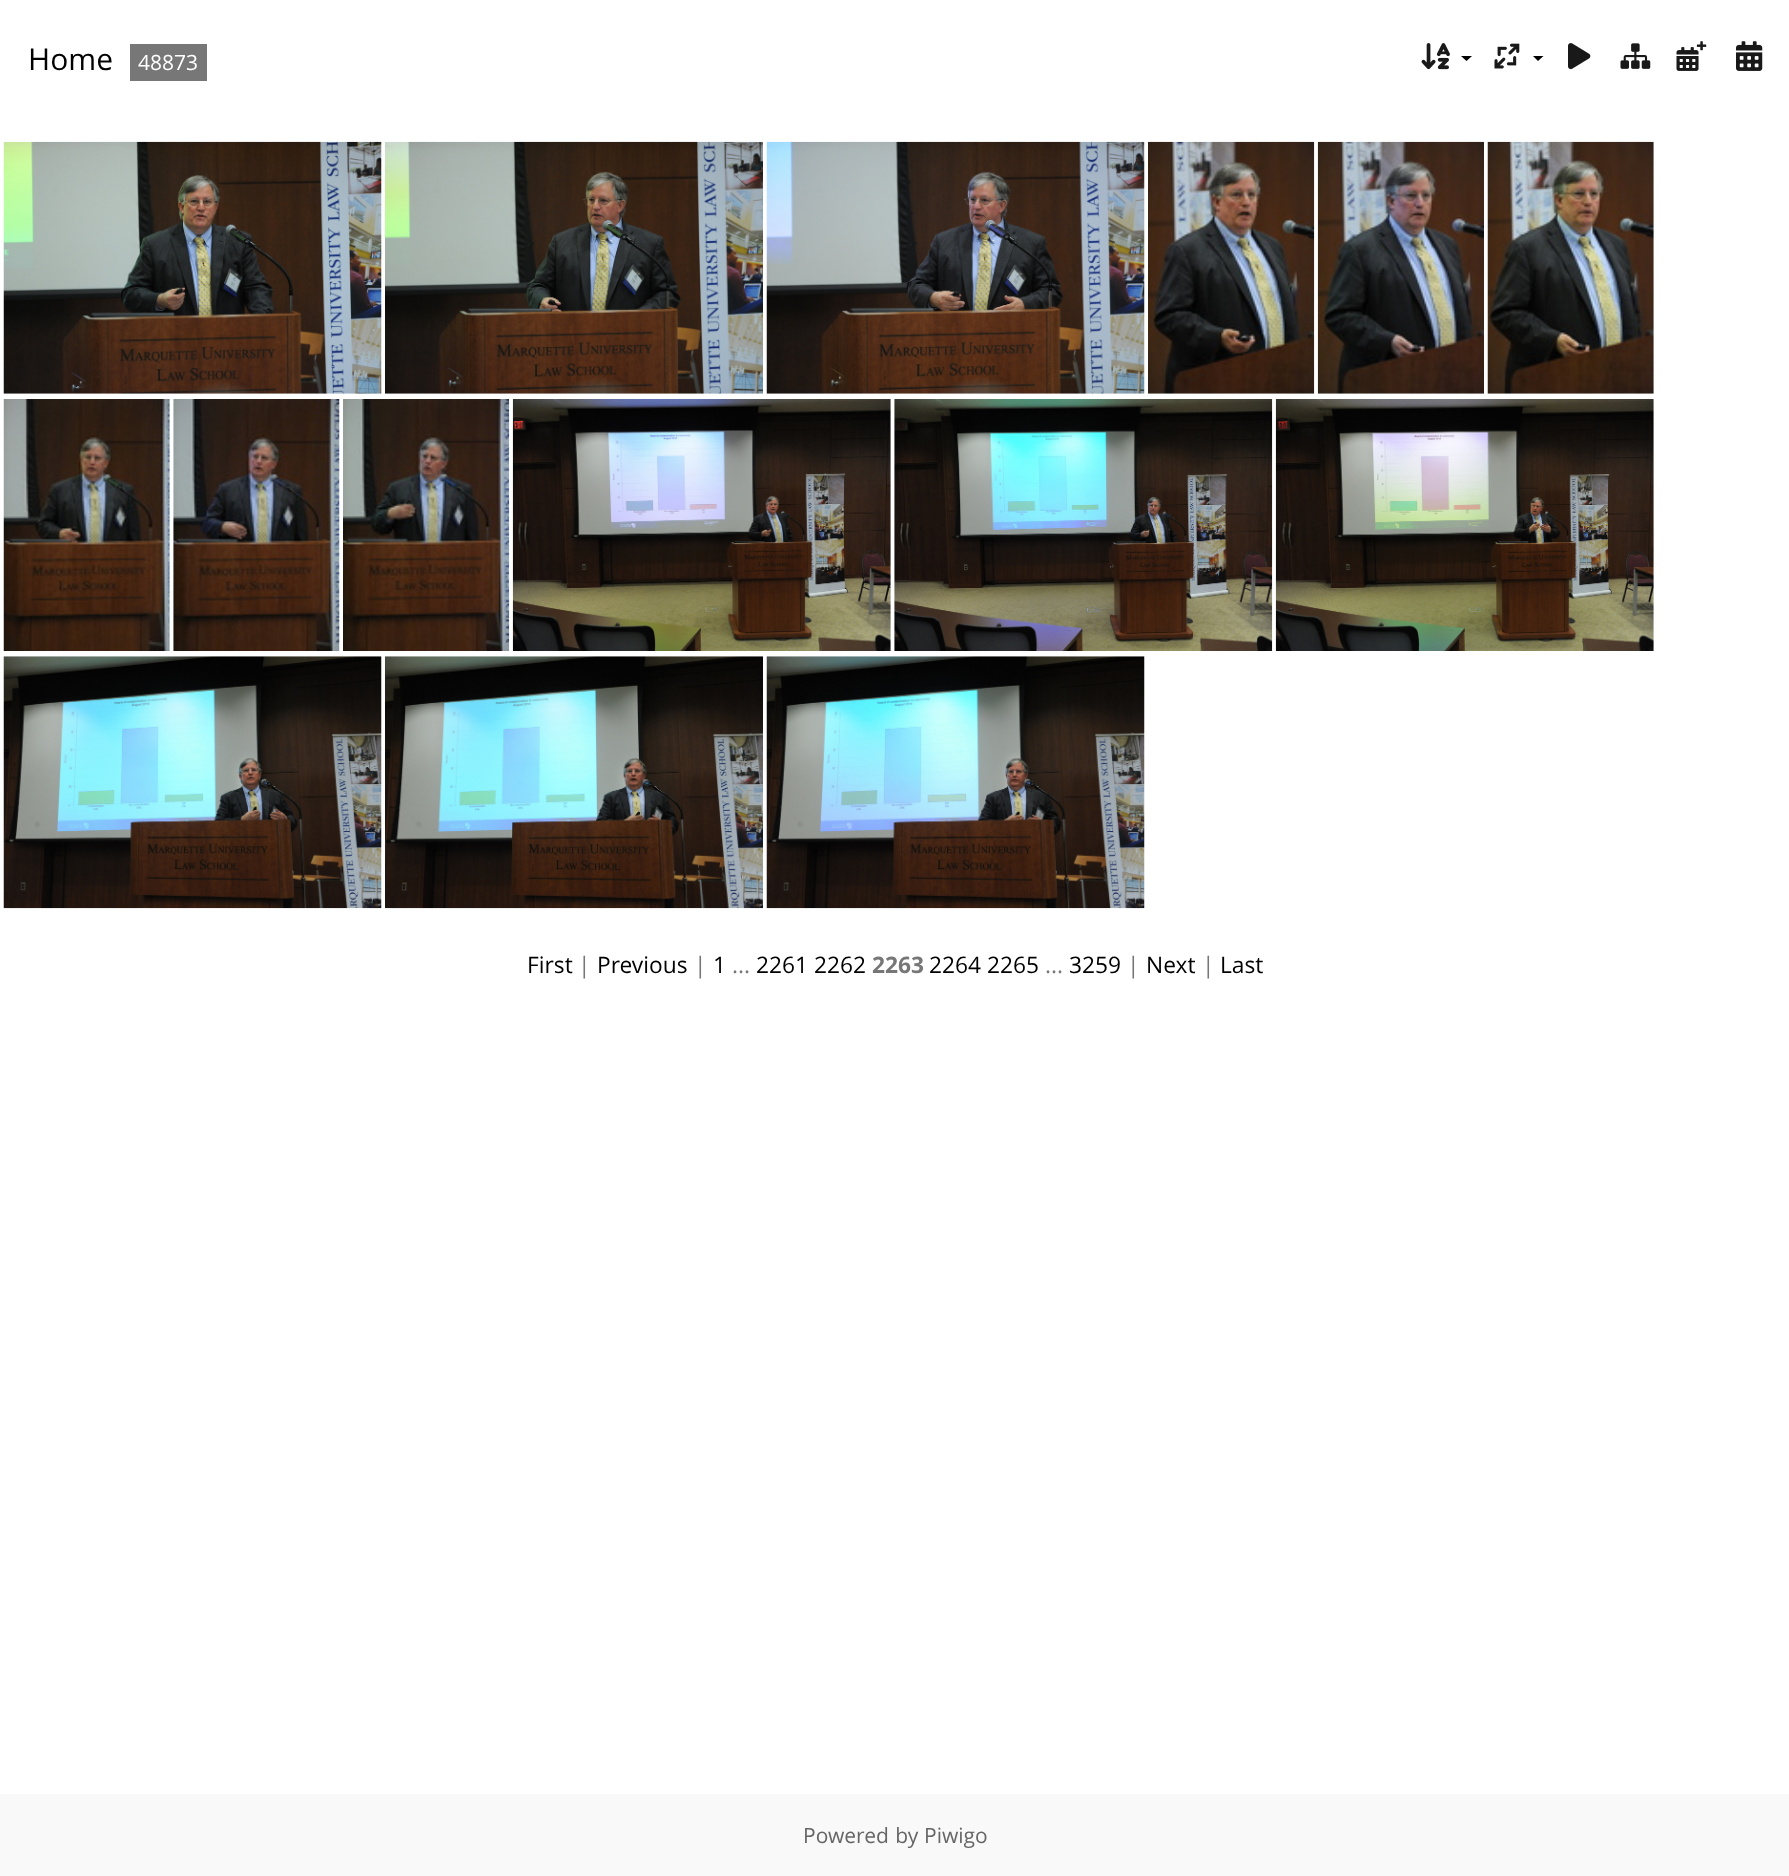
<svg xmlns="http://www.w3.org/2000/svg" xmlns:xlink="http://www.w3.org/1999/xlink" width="1789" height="1876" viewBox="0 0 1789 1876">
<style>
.cls-1{font:30px Open Sans;fill:#000000}
.cls-2{font:21px Open Sans;fill:#ffffff}
.cls-3{font:22.75px Open Sans;fill:#000000}
.cls-4{font:22.75px Open Sans;fill:#777777}
.cls-5{font:bold 22.75px Open Sans;fill:#777777}
.cls-6{font:21px Open Sans;fill:#666666}
</style>
<rect width="100%" height="100%" fill="#ffffff"/>
<rect fill="#777777" x="130" y="44" width="77" height="37"/>
<image xlink:href="image0.png" x="1421" y="43" width="29" height="27"/>
<path fill="#000000" d="M1461 56H1472L1466.5 61Z"/>
<image xlink:href="image1.png" x="1494" y="43" width="26" height="26"/>
<path fill="#000000" d="M1533 56H1543.5L1538 61Z"/>
<image xlink:href="image2.png" x="1568" y="43" width="23" height="27"/>
<image xlink:href="image3.png" x="1620" y="43" width="31" height="26"/>
<image xlink:href="image4.png" x="1676" y="41" width="31" height="30"/>
<image xlink:href="image5.png" x="1736" y="41" width="27" height="30"/>
<image xlink:href="image6.png" x="3" y="141" width="379" height="253"/>
<image xlink:href="image7.png" x="385" y="141" width="378" height="253"/>
<image xlink:href="image8.png" x="766" y="141" width="379" height="253"/>
<image xlink:href="image9.png" x="1148" y="141" width="167" height="253"/>
<image xlink:href="image10.png" x="1317" y="141" width="167" height="253"/>
<image xlink:href="image11.png" x="1487" y="141" width="167" height="253"/>
<image xlink:href="image12.png" x="3" y="399" width="167" height="252"/>
<image xlink:href="image13.png" x="173" y="399" width="167" height="252"/>
<image xlink:href="image14.png" x="343" y="399" width="167" height="252"/>
<image xlink:href="image15.png" x="512" y="399" width="379" height="252"/>
<image xlink:href="image16.png" x="894" y="399" width="379" height="252"/>
<image xlink:href="image17.png" x="1275" y="399" width="379" height="252"/>
<image xlink:href="image18.png" x="3" y="656" width="379" height="253"/>
<image xlink:href="image19.png" x="385" y="656" width="378" height="253"/>
<image xlink:href="image20.png" x="766" y="656" width="379" height="253"/>
<rect fill="#f9f9f9" x="0" y="1794" width="1789" height="82"/>
<text class="cls-1" x="28" y="70">Home</text>
<text class="cls-2" x="138" y="70">48873</text>
<text class="cls-3" x="527" y="973">First</text>
<text class="cls-4" x="578" y="973">|</text>
<text class="cls-3" x="597" y="973">Previous</text>
<text class="cls-4" x="694" y="973">|</text>
<text class="cls-3" x="713" y="973">1</text>
<text class="cls-4" x="732" y="973">...</text>
<text class="cls-3" x="756" y="973">2261 2262</text>
<text class="cls-5" x="872" y="973">2263</text>
<text class="cls-3" x="929" y="973">2264 2265</text>
<text class="cls-4" x="1045" y="973">...</text>
<text class="cls-3" x="1069" y="973">3259</text>
<text class="cls-4" x="1127" y="973">|</text>
<text class="cls-3" x="1146" y="973">Next</text>
<text class="cls-4" x="1202" y="973">|</text>
<text class="cls-3" x="1220" y="973">Last</text>
<text class="cls-6" x="803" y="1843" word-spacing="1">Powered by</text>
<text class="cls-6" x="924" y="1843">Piwigo</text>
</svg>
